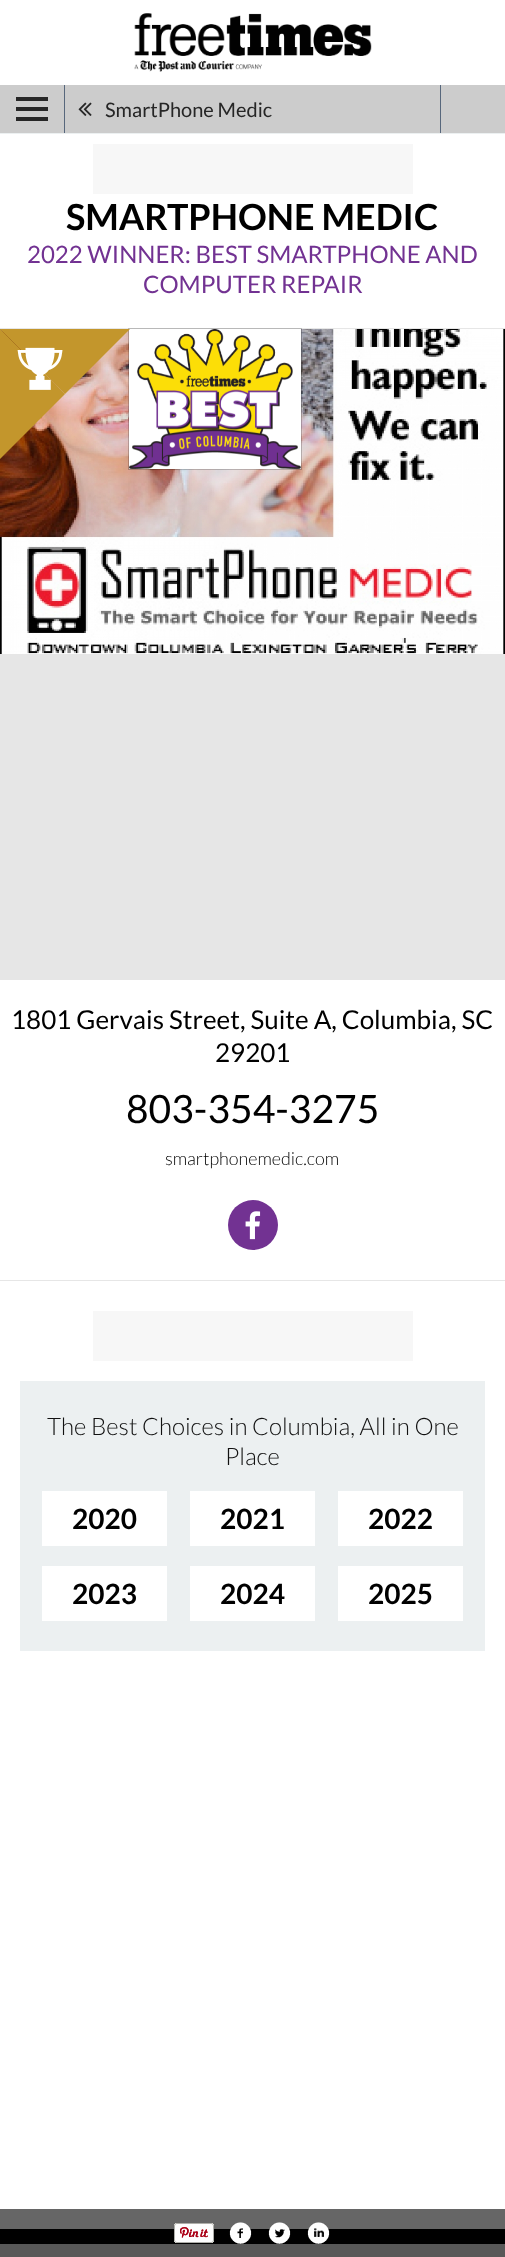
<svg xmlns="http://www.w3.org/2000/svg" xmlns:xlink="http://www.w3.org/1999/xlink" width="505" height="2257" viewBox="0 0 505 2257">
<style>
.cls-1{font:20px Lato;fill:#262626}
.cls-2{font:bold 36px Lato;fill:#000000}
.cls-3{font:24px Lato;fill:#723292}
.cls-4{font:26px Lato;fill:#000000}
.cls-5{font:39px Lato;fill:#000000}
.cls-6{font:300 18px Lato;fill:#000000}
.cls-7{font:300 24px Lato;fill:#111111}
.cls-8{font:bold 28px Lato;fill:#000000}
</style>
<rect width="100%" height="100%" fill="#585858"/>
<rect fill="#ffffff" x="0" y="0" width="505" height="85"/>
<image xlink:href="image0.png" x="134" y="13" width="238" height="59"/>
<rect fill="#ffffff" x="0" y="134" width="505" height="2075"/>
<rect fill="#666666" x="0" y="2209" width="505" height="20"/>
<rect fill="#ecf0f1" x="0" y="133" width="505" height="1"/>
<rect fill="#cccccc" x="0" y="85" width="505" height="48"/>
<rect fill="#262626" x="16" y="97" width="32" height="4"/>
<rect fill="#262626" x="16" y="107" width="32" height="4"/>
<rect fill="#262626" x="16" y="117" width="32" height="4"/>
<rect fill="#57677c" x="440" y="85" width="1" height="48"/>
<rect fill="#57677c" x="64" y="85" width="1" height="48"/>
<image xlink:href="image1.png" x="78" y="102" width="14" height="14"/>
<rect fill="#f7f7f7" x="93" y="144" width="320" height="50"/>
<rect fill="none" stroke="#e6e6e6" x="-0.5" y="328.5" width="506" height="651"/>
<image xlink:href="image2.png" x="0" y="329" width="505" height="325"/>
<rect fill="none" stroke="#000000" stroke-opacity="0.2" x="128.5" y="328.5" width="173" height="141"/>
<rect fill="#ffffff" x="129" y="329" width="172" height="140"/>
<image xlink:href="image4.png" x="129" y="329" width="172" height="140"/>
<path fill="#c3962c" d="M0 329H130L65 394Z"/>
<path fill="#c3962c" d="M0 459V329L65 394Z"/>
<image xlink:href="image3.png" x="17" y="347" width="46" height="43"/>
<rect fill="#e6e6e6" x="0" y="654" width="505" height="325"/>
<rect fill="#e6e6e6" x="0" y="1280" width="505" height="1"/>
<circle fill="#723292" cx="253" cy="1225" r="25"/>
<image xlink:href="image5.png" x="245" y="1211" width="16" height="29"/>
<rect fill="#f7f7f7" x="93" y="1311" width="320" height="50"/>
<rect fill="#ecf0f1" x="20" y="1381" width="465" height="270"/>
<rect fill="#ffffff" x="42" y="1491" width="125" height="55"/>
<rect fill="#ffffff" x="190" y="1491" width="125" height="55"/>
<rect fill="#ffffff" x="338" y="1491" width="125" height="55"/>
<rect fill="#ffffff" x="42" y="1566" width="125" height="55"/>
<rect fill="#ffffff" x="190" y="1566" width="125" height="55"/>
<rect fill="#ffffff" x="338" y="1566" width="125" height="55"/>
<rect fill="#000000" x="0" y="2229" width="505" height="15"/>
<image xlink:href="image6.png" x="174" y="2223" width="40" height="20"/>
<image xlink:href="image7.png" x="229" y="2222" width="23" height="22"/>
<image xlink:href="image8.png" x="268" y="2222" width="23" height="22"/>
<image xlink:href="image9.png" x="307" y="2222" width="23" height="22"/>
<text class="cls-1" x="105" y="117">SmartPhone Medic</text>
<text class="cls-2" x="66" y="230">SMARTPHONE MEDIC</text>
<text class="cls-3" x="27" y="263">2022 WINNER: BEST SMARTPHONE AND</text>
<text class="cls-3" x="143" y="293">COMPUTER REPAIR</text>
<text class="cls-4" x="11" y="1029">1801 Gervais Street, Suite A, Columbia, SC</text>
<text class="cls-4" x="215" y="1062">29201</text>
<text class="cls-5" x="126" y="1123">803-354-3275</text>
<text class="cls-6" x="165" y="1165">smartphonemedic.com</text>
<text class="cls-7" x="47" y="1435">The Best Choices in Columbia, All in One</text>
<text class="cls-7" x="225" y="1465">Place</text>
<text class="cls-8" x="72" y="1529">2020</text>
<text class="cls-8" x="220" y="1529">2021</text>
<text class="cls-8" x="368" y="1529">2022</text>
<text class="cls-8" x="72" y="1604">2023</text>
<text class="cls-8" x="220" y="1604">2024</text>
<text class="cls-8" x="368" y="1604">2025</text>
</svg>
